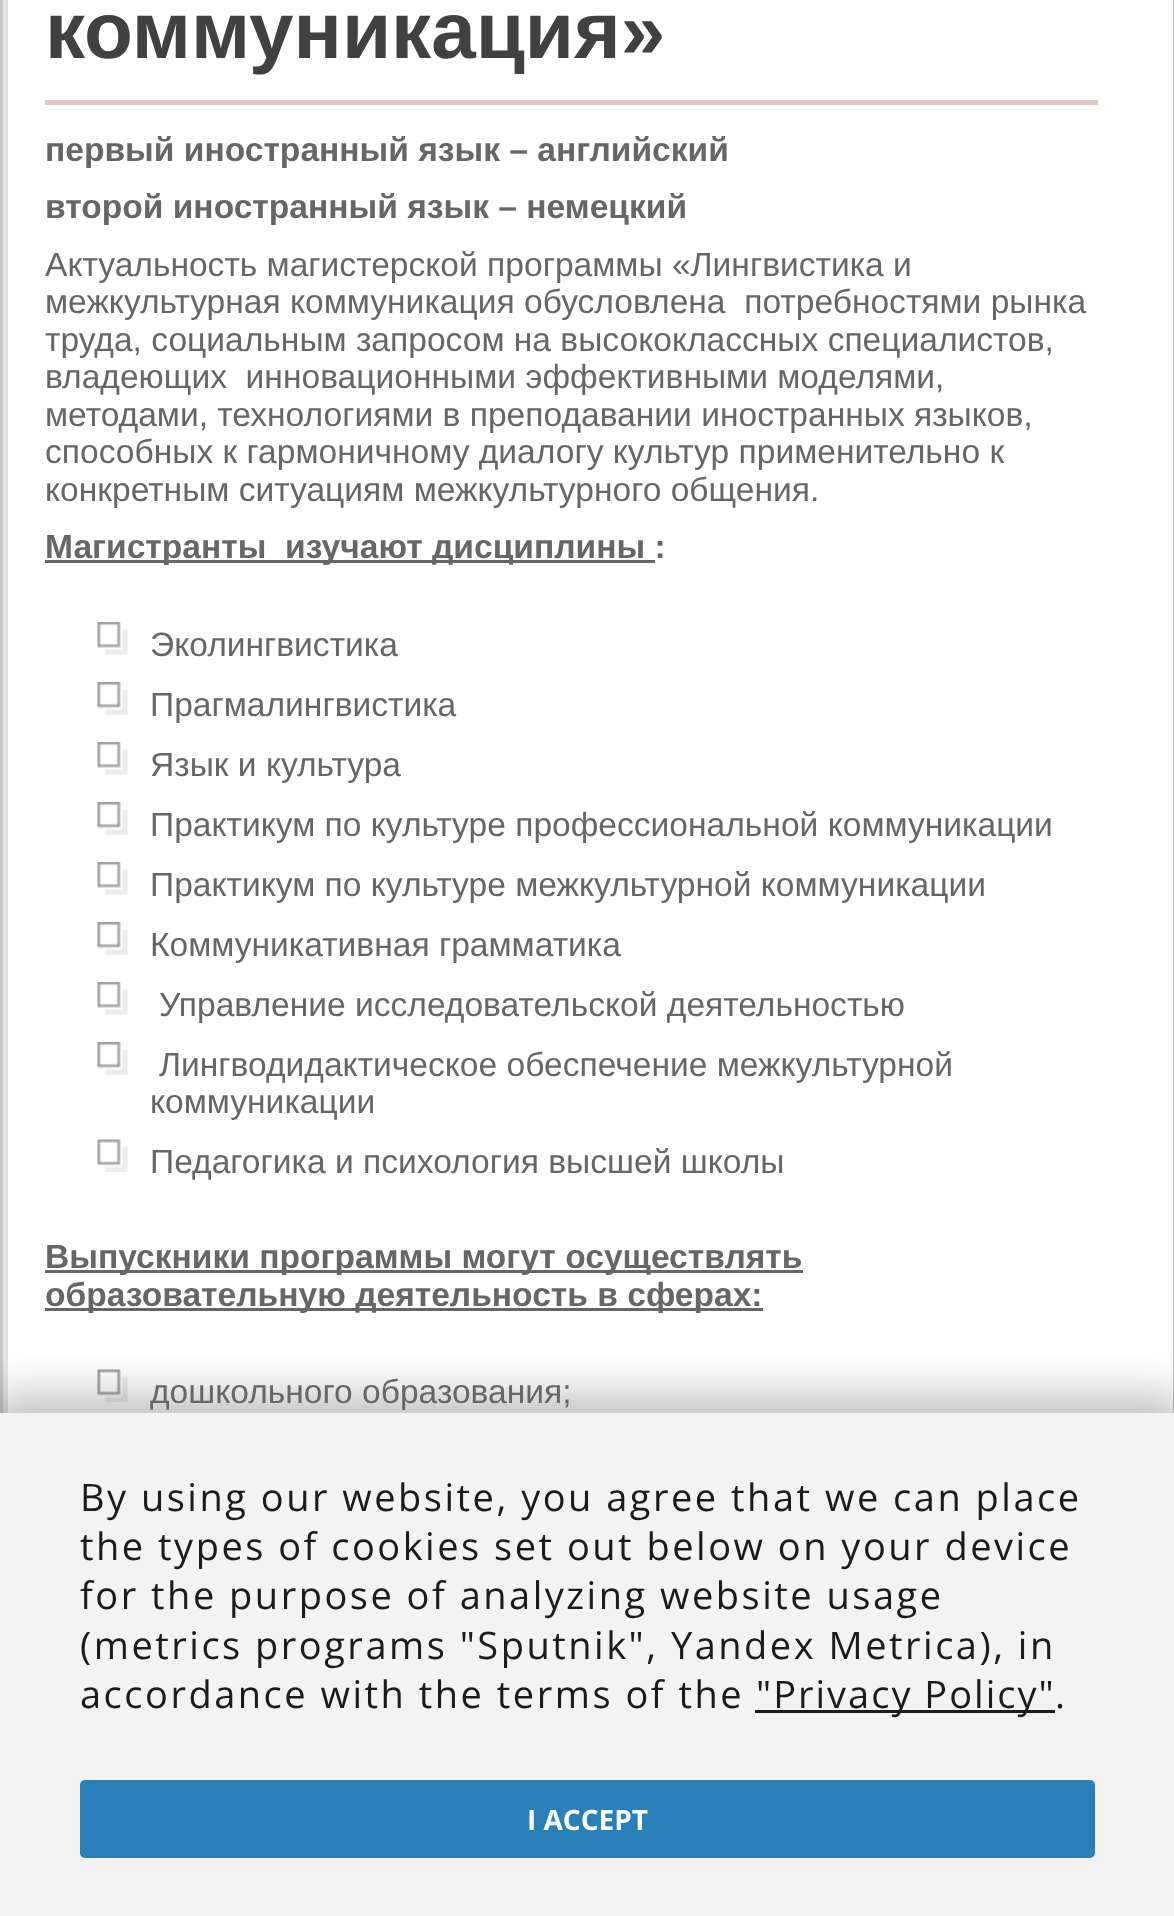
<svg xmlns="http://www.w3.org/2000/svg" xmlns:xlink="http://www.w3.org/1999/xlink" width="1174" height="1916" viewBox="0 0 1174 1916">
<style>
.cls-1{font:bold 80px Liberation Sans;fill:#414141}
.cls-2{font:bold 33.6px Liberation Sans;fill:#666666}
.cls-3{font:33.6px Liberation Sans;fill:#666666}
.cls-4{font:38px Open Sans;letter-spacing:2.5px;fill:#1b1b1b}
.cls-5{font:38px Open Sans;letter-spacing:2px;fill:#1b1b1b}
.cls-6{font:bold 28px Open Sans;fill:#ffffff}
</style>
<rect width="100%" height="100%" fill="#ffffff"/>
<rect fill="#c7c7c7" x="1173" y="0" width="1" height="1413"/>
<rect fill="#c7c7c7" x="0" y="0" width="3" height="1413"/>
<rect fill="#e3e3e3" x="3" y="0" width="5" height="1413"/>
<rect fill="#dec7c4" x="45" y="100" width="1053" height="5"/>
<rect fill="#666666" x="45" y="560" width="610" height="3"/>
<image xlink:href="image0.png" x="97" y="622" width="31" height="33"/>
<image xlink:href="image0.png" x="97" y="682" width="31" height="33"/>
<image xlink:href="image0.png" x="97" y="742" width="31" height="33"/>
<image xlink:href="image0.png" x="97" y="802" width="31" height="33"/>
<image xlink:href="image0.png" x="97" y="862" width="31" height="33"/>
<image xlink:href="image0.png" x="97" y="922" width="31" height="33"/>
<image xlink:href="image0.png" x="97" y="982" width="31" height="33"/>
<image xlink:href="image0.png" x="97" y="1042" width="31" height="33"/>
<image xlink:href="image1.png" x="97" y="1139" width="31" height="33"/>
<rect fill="#666666" x="45" y="1270" width="758" height="3"/>
<rect fill="#666666" x="45" y="1308" width="718" height="3"/>
<image xlink:href="image1.png" x="97" y="1369" width="31" height="33"/>
<rect fill="#000000" fill-opacity="0.25" filter="blur(22.5px)" x="-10" y="1395" width="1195" height="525"/>
<rect fill="#f3f3f3" x="0" y="1413" width="1174" height="503"/>
<rect fill="#1b1b1b" x="755" y="1710" width="300" height="3"/>
<rect fill="#2980b9" x="80" y="1780" width="1015" height="78" rx="5"/>
<text class="cls-1" x="45" y="58">коммуникация»</text>
<text class="cls-2"><tspan x="45" y="161">первый иностранный язык – английский</tspan><tspan x="45" y="218">второй иностранный язык – немецкий</tspan></text>
<text class="cls-3" xml:space="preserve"><tspan x="45" y="276">Актуальность магистерской программы «Лингвистика и</tspan><tspan x="45" y="313">межкультурная коммуникация обусловлена  потребностями рынка</tspan><tspan x="45" y="351">труда, социальным запросом на высококлассных специалистов,</tspan><tspan x="45" y="388">владеющих  инновационными эффективными моделями,</tspan><tspan x="45" y="426">методами, технологиями в преподавании иностранных языков,</tspan><tspan x="45" y="463">способных к гармоничному диалогу культур применительно к</tspan><tspan x="45" y="501">конкретным ситуациям межкультурного общения.</tspan></text>
<text class="cls-2" xml:space="preserve" x="45" y="558">Магистранты  изучают дисциплины :</text>
<text class="cls-3"><tspan x="150" y="656">Эколингвистика</tspan><tspan x="150" y="716">Прагмалингвистика</tspan><tspan x="150" y="776">Язык и культура</tspan><tspan x="150" y="836">Практикум по культуре профессиональной коммуникации</tspan><tspan x="150" y="896">Практикум по культуре межкультурной коммуникации</tspan><tspan x="150" y="956">Коммуникативная грамматика</tspan></text>
<text class="cls-3"><tspan x="159" y="1016">Управление исследовательской деятельностью</tspan><tspan x="159" y="1076">Лингводидактическое обеспечение межкультурной</tspan></text>
<text class="cls-3"><tspan x="150" y="1113">коммуникации</tspan><tspan x="150" y="1173">Педагогика и психология высшей школы</tspan></text>
<text class="cls-2"><tspan x="45" y="1268">Выпускники программы могут осуществлять</tspan><tspan x="45" y="1306">образовательную деятельность в сферах:</tspan></text>
<text class="cls-3" x="150" y="1403">дошкольного образования;</text>
<text class="cls-4"><tspan x="80" y="1511">By using our website, you agree that we can place</tspan><tspan x="80" y="1560">the types of cookies set out below on your device</tspan><tspan x="80" y="1609">for the purpose of analyzing website usage</tspan><tspan x="80" y="1659">(metrics programs "Sputnik", Yandex Metrica), in</tspan><tspan x="80" y="1708">accordance with the terms of the</tspan></text>
<text class="cls-5" x="756" y="1708">"Privacy Policy"</text>
<text class="cls-4" x="1055" y="1708">.</text>
<text class="cls-6" x="527" y="1830">I ACCEPT</text>
</svg>
